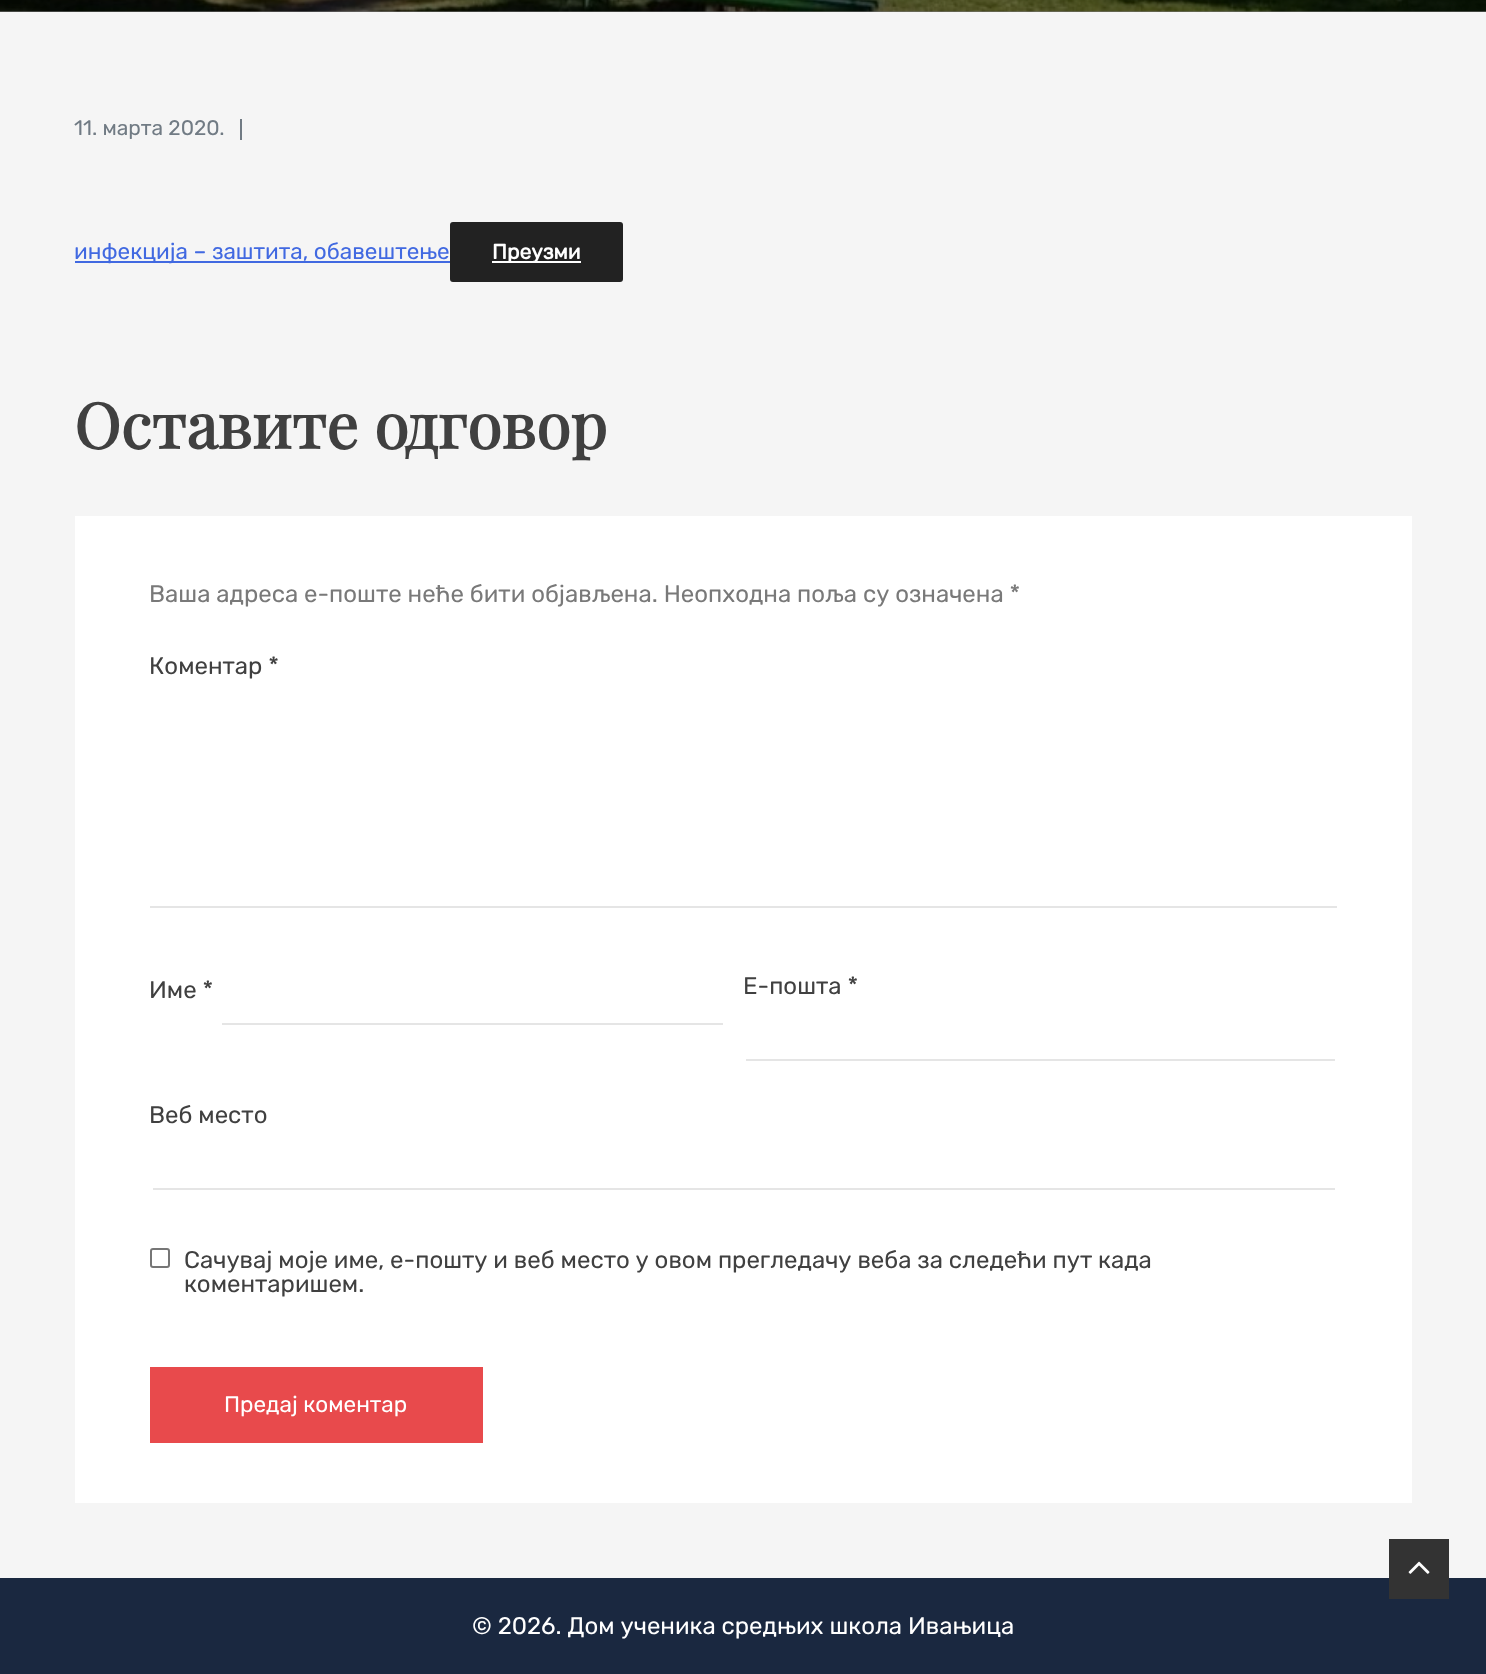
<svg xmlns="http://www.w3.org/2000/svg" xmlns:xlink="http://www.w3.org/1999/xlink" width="1486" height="1674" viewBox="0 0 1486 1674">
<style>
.cls-1{font:300 21px Rubik;fill:#717b84}
.cls-2{font:300 22.5px Rubik;fill:#4169e1}
.cls-3{font:bold 21px Rubik;fill:#ffffff}
.cls-4{font:bold 63px Playfair Display;fill:#404040}
.cls-5{font:300 24px Rubik;fill:#797979}
.cls-6{font:300 24px Rubik;fill:#404040}
.cls-7{font:300 22.5px Rubik;fill:#ffffff}
.cls-8{font:300 24px Rubik;fill:#ffffff}
</style>
<rect width="100%" height="100%" fill="#f5f5f5"/>
<rect fill="#7b7b7b" x="0" y="11" width="1486" height="1"/>
<image xlink:href="image0.png" x="0" y="0" width="1486" height="12"/>
<rect fill="#717b84" x="240" y="119" width="2" height="21"/>
<rect fill="#4169e1" x="75" y="261" width="375" height="2"/>
<rect fill="#222222" x="450" y="222" width="173" height="60" rx="3"/>
<rect fill="#ffffff" x="492" y="261" width="89" height="2"/>
<rect fill="#ffffff" x="75" y="516" width="1337" height="987"/>
<rect fill="#e5e5e5" x="150" y="906" width="1187" height="2"/>
<rect fill="#e5e5e5" x="222" y="1023" width="501" height="2"/>
<rect fill="#e5e5e5" x="746" y="1059" width="589" height="2"/>
<rect fill="#e5e5e5" x="153" y="1188" width="1182" height="2"/>
<rect fill="none" stroke="#767676" stroke-width="2" x="151" y="1249" width="18" height="18" rx="2"/>
<rect fill="#e84a4c" x="150" y="1367" width="333" height="76"/>
<rect fill="#1a2840" x="0" y="1578" width="1486" height="96"/>
<rect fill="#333333" x="1389" y="1539" width="60" height="60"/>
<image xlink:href="image1.png" x="1408" y="1561" width="22" height="13"/>
<text class="cls-1" x="74" y="135">11. марта 2020.</text>
<text class="cls-2" x="74" y="259">инфекција – заштита, обавештење</text>
<text class="cls-3" x="492" y="259">Преузми</text>
<text class="cls-4" x="74" y="449">Оставите одговор</text>
<text class="cls-5" x="149" y="602">Ваша адреса е-поште неће бити објављена. Неопходна поља су означена *</text>
<text class="cls-6" x="149" y="674">Коментар *</text>
<text class="cls-6" x="149" y="998">Име *</text>
<text class="cls-6" x="743" y="994">Е-пошта *</text>
<text class="cls-6" x="149" y="1123">Веб место</text>
<text class="cls-6"><tspan x="184" y="1268">Сачувај моје име, е-пошту и веб место у овом прегледачу веба за следећи пут када</tspan><tspan x="184" y="1292">коментаришем.</tspan></text>
<text class="cls-7" x="224" y="1412">Предај коментар</text>
<text class="cls-8" x="472" y="1634">© 2026. Дом ученика средњих школа Ивањица</text>
</svg>
